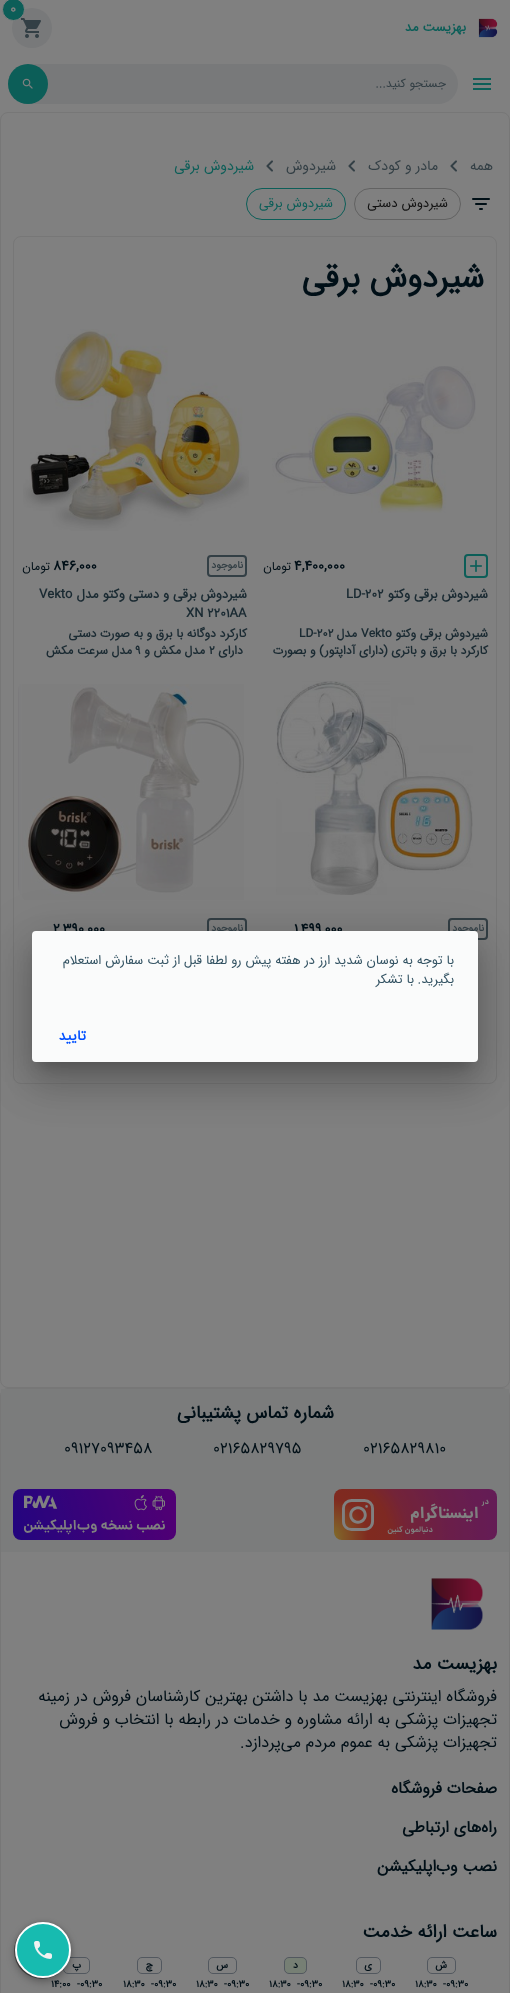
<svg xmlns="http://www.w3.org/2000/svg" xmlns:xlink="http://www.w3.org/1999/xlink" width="510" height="1993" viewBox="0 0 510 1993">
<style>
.cls-1{font:bold 14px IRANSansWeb;fill:#808080}
.cls-2{font:bold 13px IRANSansWeb;direction:rtl;fill:#0c5e58}
.cls-3{font:12px IRANSansWeb;direction:rtl;fill:#333f45}
.cls-4{font:14px IRANSansWeb;direction:rtl;fill:#333f45}
.cls-5{font:14px IRANSansWeb;direction:rtl;fill:#0c5e58}
.cls-6{font:13px IRANSansWeb;direction:rtl;fill:#111111}
.cls-7{font:13px IRANSansWeb;direction:rtl;fill:#0c5e58}
.cls-8{font:bold 32px IRANSansWeb;direction:rtl;fill:#000f17}
.cls-9{font:bold 14px IRANSansWeb;fill:#000f17}
.cls-10{font:12px IRANSansWeb;direction:rtl;fill:#000f17}
.cls-11{font:bold 13px IRANSansWeb;direction:rtl;fill:#1a2a32}
.cls-12{font:bold 13px IRANSansWeb;fill:#1a2a32}
.cls-13{font:bold 12px IRANSansWeb;direction:rtl;fill:#1a2a32}
.cls-14{font:bold 12px IRANSansWeb;fill:#1a2a32}
.cls-15{font:bold 10px IRANSansWeb;direction:rtl;fill:#333f45}
.cls-16{font:bold 18px IRANSansWeb;direction:rtl;fill:#000f17}
.cls-17{font:16px IRANSansWeb;fill:#000f17}
.cls-18{font:16px IRANSansWeb;direction:rtl;fill:#000f17}
.cls-19{font:bold 16px IRANSansWeb;direction:rtl;fill:#000f17}
.cls-20{font:bold 10px IRANSansWeb;direction:rtl;fill:#000f17}
.cls-21{font:bold 10px IRANSansWeb;fill:#000f17}
.cls-22{font:13px IRANSansWeb;direction:rtl;fill:#335363}
.cls-23{font:bold 14px IRANSansWeb;direction:rtl;fill:#0050ff}
</style>
<rect width="100%" height="100%" fill="#808080"/>
<circle fill="#78797a" cx="32" cy="28" r="20"/>
<image xlink:href="image0.png" x="21" y="18" width="20" height="20"/>
<circle fill="#0c5e58" stroke="#808080" cx="13.5" cy="9.5" r="11"/>
<image xlink:href="image1.png" x="478" y="18" width="20" height="20"/>
<image xlink:href="image2.png" x="473" y="78" width="18" height="12"/>
<rect fill="#78797a" x="8" y="64" width="450" height="40" rx="20"/>
<circle fill="#0c5e58" cx="28" cy="84" r="20"/>
<image xlink:href="image3.png" x="22" y="78" width="11" height="11"/>
<rect fill="none" stroke="#777777" x="0.5" y="112.5" width="509" height="1275" rx="7.5"/>
<image xlink:href="image4.png" x="450" y="160" width="7" height="12"/>
<image xlink:href="image4.png" x="348" y="160" width="7" height="12"/>
<image xlink:href="image4.png" x="266" y="160" width="7" height="12"/>
<image xlink:href="image5.png" x="472" y="198" width="18" height="12"/>
<rect fill="none" stroke="#626262" x="354.5" y="188.5" width="106" height="31" rx="15.5"/>
<rect fill="none" stroke="#0c5e58" x="246.5" y="188.5" width="99" height="31" rx="15.5"/>
<rect fill="none" stroke="#777777" x="13.5" y="236.5" width="483" height="847" rx="7.5"/>
<image xlink:href="image6.png" x="272" y="366" width="204" height="147"/>
<rect fill="none" stroke="#0c5e58" stroke-width="2" x="465" y="555" width="22" height="22" rx="3"/>
<image xlink:href="image7.png" x="470" y="560" width="12" height="12"/>
<image xlink:href="image8.png" x="23" y="329" width="226" height="202"/>
<rect fill="none" stroke="#333f45" stroke-width="2" x="208" y="556" width="38" height="20" rx="3"/>
<image xlink:href="image9.png" x="276" y="681" width="197" height="214"/>
<rect fill="none" stroke="#333f45" stroke-width="2" x="449" y="919" width="38" height="20" rx="3"/>
<image xlink:href="image10.png" x="18" y="684" width="226" height="216"/>
<rect fill="none" stroke="#333f45" stroke-width="2" x="208" y="919" width="38" height="20" rx="3"/>
<rect fill="none" stroke="#777777" x="0.5" y="1388.5" width="509" height="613" rx="7.5"/>
<rect fill="#7b7c7c" x="1" y="1389" width="508" height="163"/>
<image xlink:href="image11.png" x="334" y="1489" width="163" height="51"/>
<image xlink:href="image12.png" x="13" y="1489" width="163" height="51"/>
<image xlink:href="image13.png" x="431" y="1578" width="52" height="52"/>
<rect fill="none" stroke="#52585f" x="427.5" y="1957.5" width="28" height="16" rx="4.5"/>
<rect fill="none" stroke="#52585f" x="356.5" y="1957.5" width="24" height="16" rx="4.5"/>
<rect fill="#767f74" stroke="#52585f" x="284.5" y="1957.5" width="22" height="16" rx="4.5"/>
<rect fill="none" stroke="#52585f" x="208.5" y="1957.5" width="28" height="16" rx="4.5"/>
<rect fill="none" stroke="#52585f" x="137.5" y="1957.5" width="24" height="16" rx="4.5"/>
<circle fill="#4d4d4d" cx="42" cy="1951" r="28"/>
<rect fill="none" stroke="#52585f" x="63.5" y="1957.5" width="26" height="16" rx="4.5"/>
<rect fill="#000000" fill-opacity="0.28" filter="blur(4px)" x="15" y="1926" width="56" height="56" rx="28"/>
<rect fill="#000000" fill-opacity="0.14" filter="blur(2px)" x="15" y="1922" width="56" height="56" rx="28"/>
<circle fill="#17bbb0" stroke="#ffffff" stroke-width="2" cx="43" cy="1950" r="27"/>
<image xlink:href="image14.png" x="34" y="1941" width="18" height="18"/>
<rect fill="#000000" fill-opacity="0.12" filter="blur(23px)" x="24" y="932" width="462" height="147" rx="12"/>
<rect fill="#000000" fill-opacity="0.14" filter="blur(19px)" x="29" y="952" width="452" height="137" rx="7"/>
<rect fill="#000000" fill-opacity="0.2" filter="blur(7.5px)" x="39" y="949" width="432" height="117"/>
<text class="cls-1" x="10" y="13">۰</text>
<text class="cls-2" x="466" y="31">بهزیست مد</text>
<text class="cls-3" x="446" y="87">جستجو کنید...</text>
<text class="cls-4" x="493" y="170">همه</text>
<text class="cls-4" x="438" y="170">مادر و کودک</text>
<text class="cls-4" x="336" y="170">شیردوش</text>
<text class="cls-5" x="254" y="170">شیردوش برقی</text>
<text class="cls-6" x="448" y="207">شیردوش دستی</text>
<text class="cls-7" x="333" y="207">شیردوش برقی</text>
<text class="cls-8" x="484" y="287">شیردوش برقی</text>
<text class="cls-9" x="294" y="570">۴,۴۰۰,۰۰۰</text>
<text class="cls-10" x="291" y="570">تومان</text>
<text class="cls-11" x="488" y="598">شیردوش برقی وکتو</text>
<text class="cls-12" x="346" y="598">LD-۲۰۲</text>
<text class="cls-13" x="488" y="637">شیردوش برقی وکتو</text>
<text class="cls-14" x="361" y="637">Vekto</text>
<text class="cls-13" x="357" y="637">مدل</text>
<text class="cls-14" x="299" y="637">LD-۲۰۲</text>
<text class="cls-13" x="488" y="654">کارکرد با برق و باتری (دارای آداپتور) و بصورت</text>
<text class="cls-15" x="243" y="568">ناموجود</text>
<text class="cls-9" x="53" y="570">۸۴۶,۰۰۰</text>
<text class="cls-10" x="50" y="570">تومان</text>
<text class="cls-11" x="247" y="598">شیردوش برقی و دستی وکتو مدل</text>
<text class="cls-12" x="39" y="598">Vekto</text>
<text class="cls-12" x="186" y="617">XN ۲۲۰۱AA</text>
<text class="cls-13" x="247" y="637">کارکرد دوگانه با برق و به صورت دستی</text>
<text class="cls-13" x="243" y="654">دارای</text>
<text class="cls-14" x="209" y="654">۲</text>
<text class="cls-13" x="205" y="654">مدل مکش و</text>
<text class="cls-14" x="135" y="654">۹</text>
<text class="cls-13" x="132" y="654">مدل سرعت مکش</text>
<text class="cls-15" x="484" y="931">ناموجود</text>
<text class="cls-9" x="294" y="933">۱,۴۹۹,۰۰۰</text>
<text class="cls-15" x="243" y="931">ناموجود</text>
<text class="cls-9" x="53" y="933">۲,۳۹۰,۰۰۰</text>
<text class="cls-16" x="334" y="1418">شماره تماس پشتیبانی</text>
<text class="cls-17" x="363" y="1453">۰۲۱۶۵۸۲۹۸۱۰</text>
<text class="cls-17" x="213" y="1453">۰۲۱۶۵۸۲۹۷۹۵</text>
<text class="cls-17" x="64" y="1453">۰۹۱۲۷۰۹۳۴۵۸</text>
<text class="cls-16" x="497" y="1669">بهزیست مد</text>
<text class="cls-18"><tspan x="497" y="1701">فروشگاه اینترنتی بهزیست مد با داشتن بهترین کارشناسان فروش در زمینه</tspan><tspan x="497" y="1724">تجهیزات پزشکی به ارائه مشاوره و خدمات در رابطه با انتخاب و فروش</tspan><tspan x="497" y="1747">تجهیزات پزشکی به عموم مردم می‌پردازد.</tspan></text>
<text class="cls-19" x="497" y="1793">صفحات فروشگاه</text>
<text class="cls-19" x="497" y="1832">راه‌های ارتباطی</text>
<text class="cls-19" x="497" y="1871">نصب وب‌اپلیکیشن</text>
<text class="cls-16" x="497" y="1937">ساعت ارائه خدمت</text>
<text class="cls-20" x="447" y="1968">ش</text>
<text class="cls-21" x="446" y="1987">۰۹:۳۰</text>
<text class="cls-21" x="443" y="1987">-</text>
<text class="cls-21" x="415" y="1987">۱۸:۳۰</text>
<text class="cls-20" x="372" y="1968">ی</text>
<text class="cls-21" x="373" y="1987">۰۹:۳۰</text>
<text class="cls-21" x="370" y="1987">-</text>
<text class="cls-21" x="342" y="1987">۱۸:۳۰</text>
<text class="cls-20" x="298" y="1968">د</text>
<text class="cls-21" x="300" y="1987">۰۹:۳۰</text>
<text class="cls-21" x="297" y="1987">-</text>
<text class="cls-21" x="269" y="1987">۱۸:۳۰</text>
<text class="cls-20" x="228" y="1968">س</text>
<text class="cls-21" x="227" y="1987">۰۹:۳۰</text>
<text class="cls-21" x="224" y="1987">-</text>
<text class="cls-21" x="196" y="1987">۱۸:۳۰</text>
<text class="cls-20" x="153" y="1968">چ</text>
<text class="cls-21" x="154" y="1987">۰۹:۳۰</text>
<text class="cls-21" x="151" y="1987">-</text>
<text class="cls-21" x="123" y="1987">۱۸:۳۰</text>
<text class="cls-20" x="81" y="1968">پ</text>
<text class="cls-21" x="80" y="1987">۰۹:۳۰</text>
<text class="cls-21" x="77" y="1987">-</text>
<text class="cls-21" x="51" y="1987">۱۴:۰۰</text>
<rect fill="#fafbfb" x="32" y="931" width="446" height="131" rx="4"/>
<text class="cls-22"><tspan x="454" y="964">با توجه به نوسان شدید ارز در هفته پیش رو لطفا قبل از ثبت سفارش استعلام</tspan><tspan x="454" y="983">بگیرید.</tspan></text>
<text class="cls-22" x="414" y="983">با تشکر</text>
<text class="cls-23" x="86" y="1040">تایید</text>
</svg>
